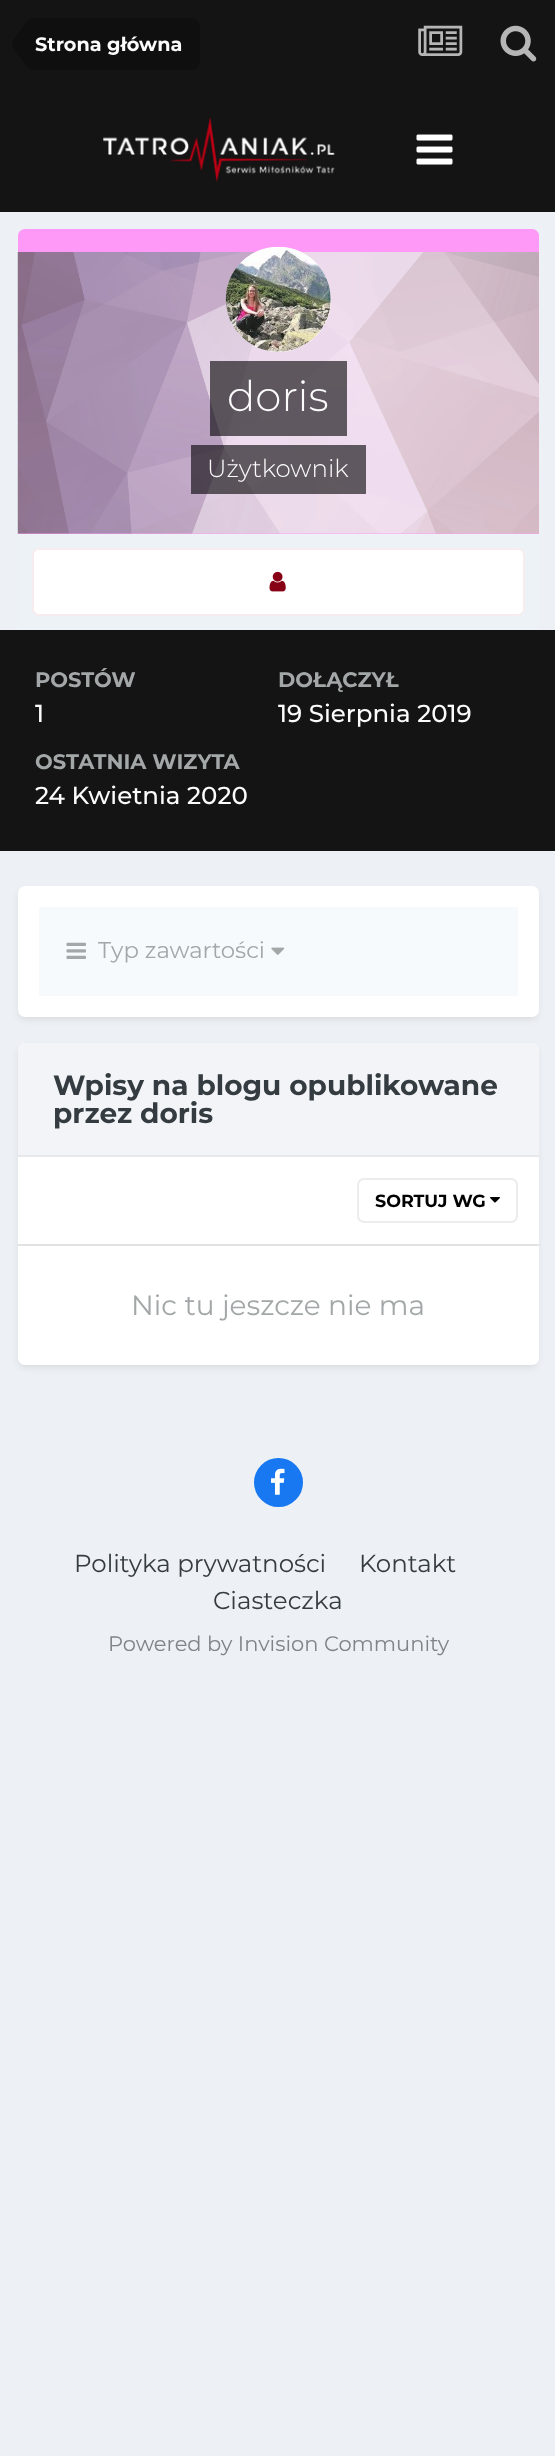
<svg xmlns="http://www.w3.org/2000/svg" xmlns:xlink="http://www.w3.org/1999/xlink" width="555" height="2456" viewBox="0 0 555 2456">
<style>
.cls-1{font:bold 19.25px Montserrat;fill:#fcfcfc}
.cls-2{font:300 42px Montserrat;fill:#fcfcfc}
.cls-3{font:300 24.5px Montserrat;fill:#fcfcfc}
.cls-4{font:bold 21px Montserrat;fill:#a3a7a8}
.cls-5{font:500 24.5px Montserrat;fill:#fcfcfc}
.cls-6{font:22.75px Montserrat;fill:#a3a7a8}
.cls-7{font:bold 28px Montserrat;fill:#353c41}
.cls-8{font:bold 17.5px Montserrat;fill:#000000}
.cls-9{font:28px Montserrat;fill:#a3a7a8}
.cls-10{font:24.5px Montserrat;fill:#353c41}
.cls-11{font:21px Montserrat;fill:#7f8489}
</style>
<rect width="100%" height="100%" fill="#edf0f4"/>
<rect fill="#141414" x="0" y="0" width="555" height="212"/>
<image xlink:href="image0.png" x="103" y="117" width="232" height="65"/>
<image xlink:href="image1.png" x="416" y="134" width="37" height="31"/>
<path fill="#0f0f0f" d="M35 18H191C196 18 200 22 200 27V61C200 66 196 70 191 70H35Z"/>
<path fill="#0f0f0f" d="M13 47L12.5 44H35V70C27.5 70 24 62.5 20.5 57.5ZM35 18V44H12.5V41L25 24C27.5 20 31 18 35 18Z"/>
<image xlink:href="image2.png" x="418" y="25" width="45" height="31"/>
<image xlink:href="image3.png" x="500" y="25" width="37" height="37"/>
<path fill="#ff99f7" d="M25 229H532C536 229 539 232 539 236V534H18V236C18 232 21 229 25 229Z"/>
<image xlink:href="image4.png" x="17" y="252" width="522" height="282"/>
<circle fill="#ffffff" cx="278.5" cy="299.5" r="52.5"/>
<image xlink:href="image5.png" x="225" y="246" width="106" height="106"/>
<rect fill="#000000" fill-opacity="0.6" x="210" y="361" width="137" height="75"/>
<rect fill="#000000" fill-opacity="0.6" x="191" y="445" width="175" height="49"/>
<rect fill="#edf2f7" x="18" y="534" width="521" height="96"/>
<rect fill="#ffffff" x="32" y="548" width="493" height="68" rx="7"/>
<rect fill="none" stroke="#870015" stroke-opacity="0.07" stroke-width="2" x="33" y="549" width="491" height="66" rx="6"/>
<image xlink:href="image6.png" x="269" y="571" width="17" height="21"/>
<rect fill="#141414" x="0" y="630" width="555" height="221"/>
<rect fill="#141414" fill-opacity="0.1" filter="blur(3.5px)" x="19" y="891" width="518" height="128" rx="5"/>
<rect fill="#ffffff" x="18" y="886" width="521" height="131" rx="7"/>
<rect fill="#f7fafc" x="39" y="907" width="479" height="89"/>
<image xlink:href="image7.png" x="66" y="942" width="20" height="17"/>
<image xlink:href="image8.png" x="271" y="947" width="14" height="8"/>
<rect fill="#141414" fill-opacity="0.1" filter="blur(3.5px)" x="19" y="1048" width="518" height="319" rx="5"/>
<rect fill="#ffffff" x="18" y="1043" width="521" height="322" rx="7"/>
<path fill="#f2f4f7" d="M25 1043H532C536 1043 539 1046 539 1050V1157H18V1050C18 1046 21 1043 25 1043Z"/>
<rect fill="#e6e8eb" x="18" y="1155" width="521" height="2"/>
<rect fill="#e1e2e3" x="18" y="1244" width="521" height="2"/>
<image xlink:href="image9.png" x="490" y="1197" width="10" height="6"/>
<rect fill="none" stroke="#ebecec" stroke-width="2" x="358" y="1179" width="159" height="43" rx="6"/>
<circle fill="#1778f2" cx="278.5" cy="1482.5" r="24.5"/>
<image xlink:href="image10.png" x="271" y="1468" width="14" height="27"/>
<text class="cls-1" x="35" y="51">Strona główna</text>
<text class="cls-2" x="227" y="411">doris</text>
<text class="cls-3" x="207" y="477">Użytkownik</text>
<text class="cls-4" x="35" y="687">POSTÓW</text>
<text class="cls-5" x="35" y="722">1</text>
<text class="cls-4" x="278" y="687">DOŁĄCZYŁ</text>
<text class="cls-5" x="278" y="722">19 Sierpnia 2019</text>
<text class="cls-4" x="35" y="769">OSTATNIA WIZYTA</text>
<text class="cls-5" x="35" y="804">24 Kwietnia 2020</text>
<text class="cls-6" x="98" y="958">Typ zawartości</text>
<text class="cls-7"><tspan x="53" y="1095">Wpisy na blogu opublikowane</tspan><tspan x="53" y="1123">przez doris</tspan></text>
<text class="cls-8" x="375" y="1207">SORTUJ WG</text>
<text class="cls-9" x="131" y="1315">Nic tu jeszcze nie ma</text>
<text class="cls-10" x="74" y="1572">Polityka prywatności</text>
<text class="cls-10" x="359" y="1572">Kontakt</text>
<text class="cls-10" x="213" y="1609">Ciasteczka</text>
<text class="cls-11" x="108" y="1651">Powered by Invision Community</text>
</svg>
